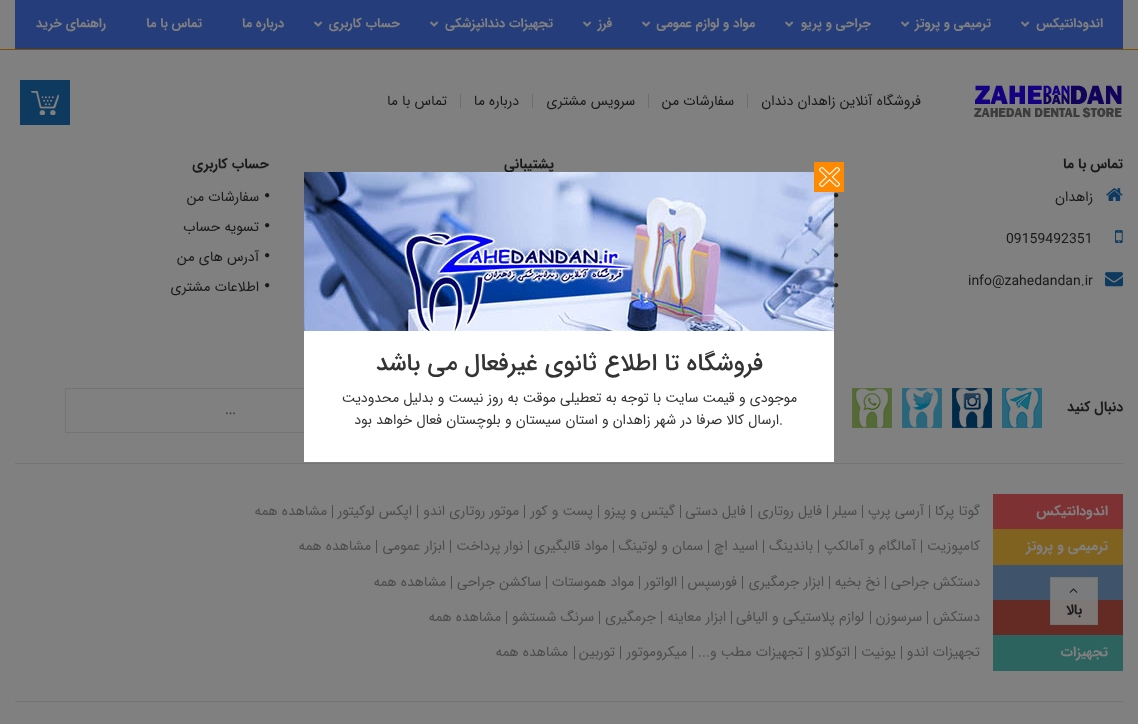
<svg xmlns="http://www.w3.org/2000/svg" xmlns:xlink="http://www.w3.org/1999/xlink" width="1138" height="724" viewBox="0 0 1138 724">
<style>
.cls-1{font:bold 13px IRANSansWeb;direction:rtl;fill:#808080}
.cls-2{font:14px IRANSansWeb;direction:rtl;fill:#1a1a1a}
.cls-3{font:bold 14px IRANSansWeb;direction:rtl;fill:#1a1a1a}
.cls-4{font:14px IRANSansWeb;fill:#1a1a1a}
.cls-5{font:14px Open Sans;direction:rtl;fill:#3b3b3b}
.cls-6{font:bold 14px IRANSansWeb;direction:rtl;fill:#808080}
.cls-7{font:14px IRANSansWeb;direction:rtl;fill:#4d4d4d}
.cls-8{font:500 24px IRANSansWeb;direction:rtl;fill:#333333}
.cls-9{font:14px IRANSansWeb;direction:rtl;fill:#333333}
.cls-10{font:14px IRANSansWeb;fill:#333333}
</style>
<rect width="100%" height="100%" fill="#808080"/>
<rect fill="#253d7a" x="15" y="0" width="1108" height="49"/>
<image xlink:href="image0.png" x="1021" y="21" width="9" height="6"/>
<image xlink:href="image0.png" x="901" y="21" width="9" height="6"/>
<image xlink:href="image0.png" x="785" y="21" width="9" height="6"/>
<image xlink:href="image0.png" x="642" y="21" width="9" height="6"/>
<image xlink:href="image0.png" x="583" y="21" width="9" height="6"/>
<image xlink:href="image0.png" x="430" y="21" width="9" height="6"/>
<image xlink:href="image0.png" x="314" y="21" width="9" height="6"/>
<rect fill="#0f3a5f" x="20" y="80" width="50" height="45"/>
<image xlink:href="image1.png" x="31" y="91" width="28" height="24"/>
<rect fill="#7f4e00" x="0" y="49" width="1138" height="1"/>
<image xlink:href="image2.png" x="974" y="85" width="148" height="33"/>
<rect fill="#6d6d6d" x="747" y="94" width="1" height="14"/>
<rect fill="#6d6d6d" x="648" y="94" width="1" height="14"/>
<rect fill="#6d6d6d" x="532" y="94" width="1" height="14"/>
<rect fill="#6d6d6d" x="460" y="94" width="1" height="14"/>
<image xlink:href="image3.png" x="1106" y="188" width="17" height="13"/>
<image xlink:href="image4.png" x="1115" y="230" width="8" height="13"/>
<image xlink:href="image5.png" x="1105" y="272" width="18" height="15"/>
<image xlink:href="image6.png" x="834" y="193" width="5" height="5"/>
<image xlink:href="image6.png" x="834" y="223" width="5" height="5"/>
<image xlink:href="image6.png" x="834" y="253" width="5" height="5"/>
<image xlink:href="image6.png" x="834" y="283" width="5" height="5"/>
<image xlink:href="image6.png" x="265" y="193" width="5" height="5"/>
<image xlink:href="image6.png" x="265" y="223" width="5" height="5"/>
<image xlink:href="image6.png" x="265" y="253" width="5" height="5"/>
<image xlink:href="image6.png" x="265" y="283" width="5" height="5"/>
<image xlink:href="image7.png" x="1002" y="388" width="40" height="40"/>
<image xlink:href="image8.png" x="952" y="388" width="40" height="40"/>
<image xlink:href="image9.png" x="902" y="388" width="40" height="40"/>
<image xlink:href="image10.png" x="852" y="388" width="40" height="40"/>
<rect fill="none" stroke="#747474" x="65.5" y="388.5" width="314" height="44"/>
<rect fill="#747474" x="15" y="463" width="1108" height="1"/>
<rect fill="#747474" x="15" y="701" width="1108" height="1"/>
<rect fill="#7d3133" x="993" y="494" width="130" height="35"/>
<rect fill="#4d4d4d" x="929" y="505" width="1" height="13"/>
<rect fill="#4d4d4d" x="862" y="505" width="1" height="13"/>
<rect fill="#4d4d4d" x="827" y="505" width="1" height="13"/>
<rect fill="#4d4d4d" x="751" y="505" width="1" height="13"/>
<rect fill="#4d4d4d" x="680" y="505" width="1" height="13"/>
<rect fill="#4d4d4d" x="598" y="505" width="1" height="13"/>
<rect fill="#4d4d4d" x="524" y="505" width="1" height="13"/>
<rect fill="#4d4d4d" x="417" y="505" width="1" height="13"/>
<rect fill="#4d4d4d" x="332" y="505" width="1" height="13"/>
<rect fill="#7f621f" x="993" y="529" width="130" height="36"/>
<rect fill="#4d4d4d" x="921" y="540" width="1" height="13"/>
<rect fill="#4d4d4d" x="818" y="540" width="1" height="13"/>
<rect fill="#4d4d4d" x="763" y="540" width="1" height="13"/>
<rect fill="#4d4d4d" x="708" y="540" width="1" height="13"/>
<rect fill="#4d4d4d" x="613" y="540" width="1" height="13"/>
<rect fill="#4d4d4d" x="528" y="540" width="1" height="13"/>
<rect fill="#4d4d4d" x="450" y="540" width="1" height="13"/>
<rect fill="#4d4d4d" x="376" y="540" width="1" height="13"/>
<rect fill="#3f546b" x="993" y="565" width="130" height="35"/>
<rect fill="#4d4d4d" x="885" y="576" width="1" height="13"/>
<rect fill="#4d4d4d" x="829" y="576" width="1" height="13"/>
<rect fill="#4d4d4d" x="742" y="576" width="1" height="13"/>
<rect fill="#4d4d4d" x="682" y="576" width="1" height="13"/>
<rect fill="#4d4d4d" x="639" y="576" width="1" height="13"/>
<rect fill="#4d4d4d" x="546" y="576" width="1" height="13"/>
<rect fill="#4d4d4d" x="451" y="576" width="1" height="13"/>
<rect fill="#642a24" x="993" y="600" width="130" height="35"/>
<rect fill="#4d4d4d" x="927" y="611" width="1" height="13"/>
<rect fill="#4d4d4d" x="870" y="611" width="1" height="13"/>
<rect fill="#4d4d4d" x="731" y="611" width="1" height="13"/>
<rect fill="#4d4d4d" x="661" y="611" width="1" height="13"/>
<rect fill="#4d4d4d" x="599" y="611" width="1" height="13"/>
<rect fill="#4d4d4d" x="506" y="611" width="1" height="13"/>
<rect fill="#2d635e" x="993" y="635" width="130" height="36"/>
<rect fill="#4d4d4d" x="901" y="646" width="1" height="13"/>
<rect fill="#4d4d4d" x="855" y="646" width="1" height="13"/>
<rect fill="#4d4d4d" x="808" y="646" width="1" height="13"/>
<rect fill="#4d4d4d" x="692" y="646" width="1" height="13"/>
<rect fill="#4d4d4d" x="620" y="646" width="1" height="13"/>
<rect fill="#4d4d4d" x="574" y="646" width="1" height="13"/>
<rect fill="#808080" fill-opacity="0.9" stroke="#737373" x="1050.5" y="577.5" width="47" height="47"/>
<image xlink:href="image11.png" x="1069" y="588" width="9" height="5"/>
<rect fill="#ffffff" x="304" y="331" width="530" height="131"/>
<text class="cls-1" x="1103" y="27">اندودانتیکس</text>
<text class="cls-1" x="991" y="27">ترمیمی و پروتز</text>
<text class="cls-1" x="871" y="27">جراحی و پریو</text>
<text class="cls-1" x="755" y="27">مواد و لوازم عمومی</text>
<text class="cls-1" x="612" y="27">فرز</text>
<text class="cls-1" x="553" y="27">تجهیزات دندانپزشکی</text>
<text class="cls-1" x="400" y="27">حساب کاربری</text>
<text class="cls-1" x="284" y="27">درباره ما</text>
<text class="cls-1" x="202" y="27">تماس با ما</text>
<text class="cls-1" x="106" y="27">راهنمای خرید</text>
<text class="cls-2" x="921" y="105">فروشگاه آنلاین زاهدان دندان</text>
<text class="cls-2" x="734" y="105">سفارشات من</text>
<text class="cls-2" x="635" y="105">سرویس مشتری</text>
<text class="cls-2" x="519" y="105">درباره ما</text>
<text class="cls-2" x="447" y="105">تماس با ما</text>
<text class="cls-3" x="1123" y="168">تماس با ما</text>
<text class="cls-2" x="1093" y="201">زاهدان</text>
<text class="cls-4" x="1006" y="243">09159492351</text>
<text class="cls-4" x="968" y="285">info@zahedandan.ir</text>
<text class="cls-3" x="554" y="168">پشتیبانی</text>
<text class="cls-3" x="269" y="168">حساب کاربری</text>
<text class="cls-2" x="259" y="201">سفارشات من</text>
<text class="cls-2" x="259" y="231">تسویه حساب</text>
<text class="cls-2" x="259" y="261">آدرس های من</text>
<text class="cls-2" x="259" y="291">اطلاعات مشتری</text>
<text class="cls-3" x="1123" y="411">دنبال کنید</text>
<text class="cls-5" x="236" y="414">...</text>
<text class="cls-6" x="1108" y="515">اندودانتیکس</text>
<text class="cls-7" x="980" y="515">گوتا پرکا</text>
<text class="cls-7" x="924" y="515">آرسی پرپ</text>
<text class="cls-7" x="857" y="515">سیلر</text>
<text class="cls-7" x="822" y="515">فایل روتاری</text>
<text class="cls-7" x="746" y="515">فایل دستی</text>
<text class="cls-7" x="675" y="515">گیتس و پیزو</text>
<text class="cls-7" x="593" y="515">پست و کور</text>
<text class="cls-7" x="519" y="515">موتور روتاری اندو</text>
<text class="cls-7" x="412" y="515">اپکس لوکیتور</text>
<text class="cls-7" x="327" y="515">مشاهده همه</text>
<text class="cls-6" x="1108" y="550">ترمیمی و پروتز</text>
<text class="cls-7" x="980" y="550">کامپوزیت</text>
<text class="cls-7" x="916" y="550">آمالگام و آمالکپ</text>
<text class="cls-7" x="813" y="550">باندینگ</text>
<text class="cls-7" x="758" y="550">اسید اچ</text>
<text class="cls-7" x="703" y="550">سمان و لوتینگ</text>
<text class="cls-7" x="608" y="550">مواد قالبگیری</text>
<text class="cls-7" x="523" y="550">نوار پرداخت</text>
<text class="cls-7" x="445" y="550">ابزار عمومی</text>
<text class="cls-7" x="371" y="550">مشاهده همه</text>
<text class="cls-7" x="980" y="586">دستکش جراحی</text>
<text class="cls-7" x="880" y="586">نخ بخیه</text>
<text class="cls-7" x="824" y="586">ابزار جرمگیری</text>
<text class="cls-7" x="737" y="586">فورسپس</text>
<text class="cls-7" x="677" y="586">الواتور</text>
<text class="cls-7" x="634" y="586">مواد هموستات</text>
<text class="cls-7" x="541" y="586">ساکشن جراحی</text>
<text class="cls-7" x="446" y="586">مشاهده همه</text>
<text class="cls-7" x="980" y="621">دستکش</text>
<text class="cls-7" x="922" y="621">سرسوزن</text>
<text class="cls-7" x="864" y="621">لوازم پلاستیکی و الیافی</text>
<text class="cls-7" x="726" y="621">ابزار معاینه</text>
<text class="cls-7" x="656" y="621">جرمگیری</text>
<text class="cls-7" x="594" y="621">سرنگ شستشو</text>
<text class="cls-7" x="501" y="621">مشاهده همه</text>
<text class="cls-6" x="1108" y="656">تجهیزات</text>
<text class="cls-7" x="980" y="656">تجهیزات اندو</text>
<text class="cls-7" x="896" y="656">یونیت</text>
<text class="cls-7" x="850" y="656">اتوکلاو</text>
<text class="cls-7" x="803" y="656">تجهیزات مطب و...</text>
<text class="cls-7" x="687" y="656">میکروموتور</text>
<text class="cls-7" x="615" y="656">توربین</text>
<text class="cls-7" x="568" y="656">مشاهده همه</text>
<text class="cls-3" x="1082" y="614">بالا</text>
<image xlink:href="image13.png" x="304" y="172" width="530" height="159"/>
<rect fill="#ff8a00" x="814" y="162" width="30" height="30"/>
<image xlink:href="image12.png" x="819" y="167" width="21" height="20"/>
<text class="cls-8" x="763" y="370">فروشگاه تا اطلاع ثانوی غیرفعال می باشد</text>
<text class="cls-9" x="797" y="402">موجودی و قیمت سایت با توجه به تعطیلی موقت به روز نیست و بدلیل محدودیت</text>
<text class="cls-10" x="779" y="424">.</text>
<text class="cls-9" x="779" y="424">ارسال کالا صرفا در شهر زاهدان و استان سیستان و بلوچستان فعال خواهد بود</text>
</svg>
